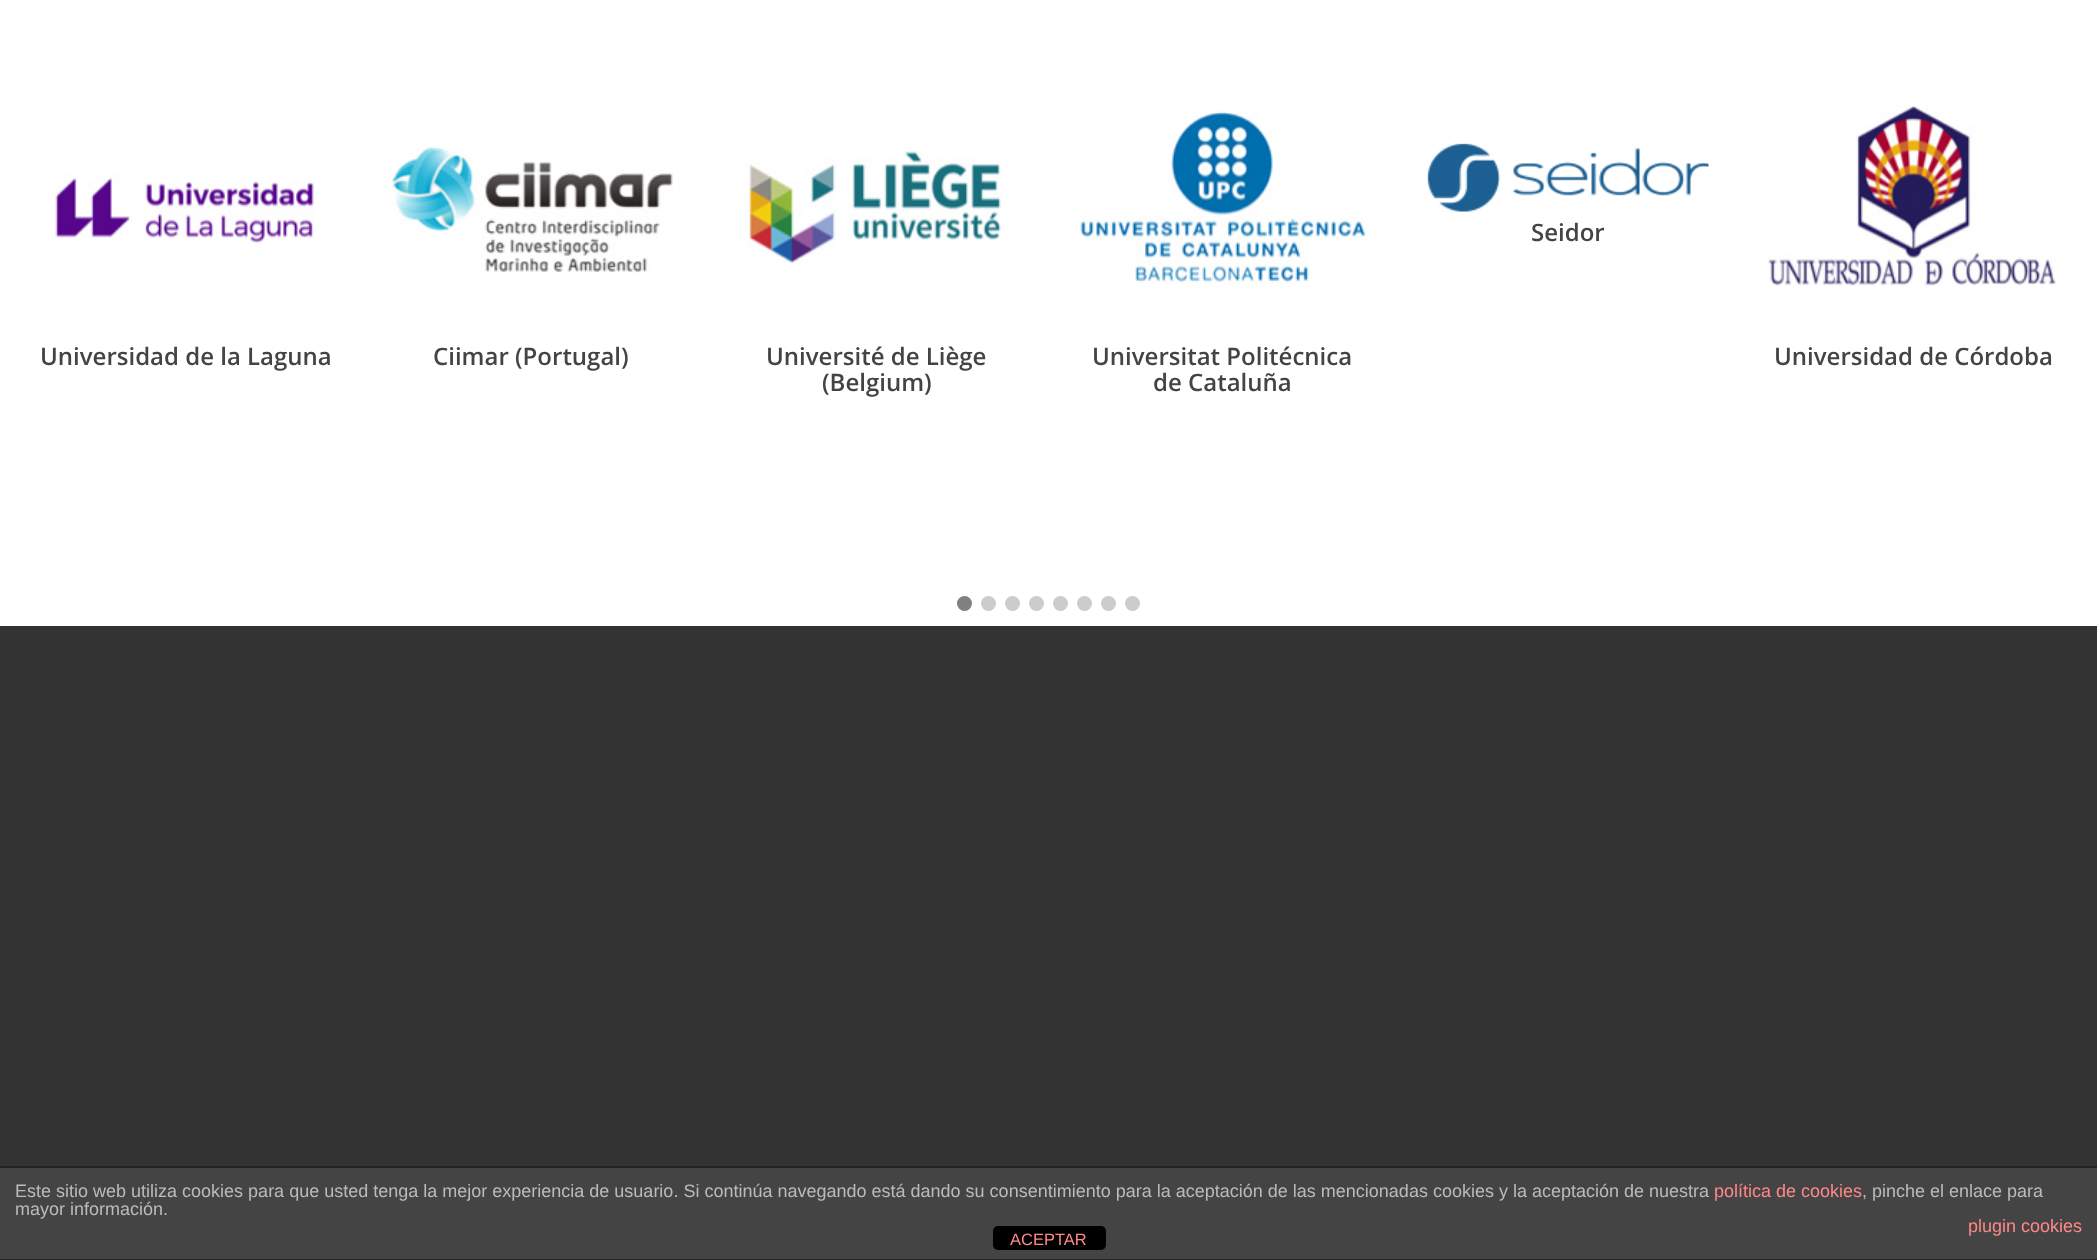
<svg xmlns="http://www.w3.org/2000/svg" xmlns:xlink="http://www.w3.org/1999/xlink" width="2097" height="1260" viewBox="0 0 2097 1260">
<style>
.cls-1{font:600 24px Open Sans;fill:#444444}
.cls-2{font:18px Liberation Sans;fill:#bbbbbb}
.cls-3{font:18px Liberation Sans;fill:#ff8888}
.cls-4{font:16.5px Liberation Sans;fill:#ff8888}
</style>
<rect width="100%" height="100%" fill="#333333"/>
<rect fill="#ffffff" x="0" y="0" width="2097" height="626"/>
<image xlink:href="image0.png" x="1427" y="143" width="282" height="69"/>
<image xlink:href="image1.png" x="55" y="173" width="261" height="70"/>
<image xlink:href="image2.png" x="387" y="147" width="286" height="126"/>
<image xlink:href="image3.png" x="747" y="151" width="254" height="113"/>
<image xlink:href="image4.png" x="1080" y="111" width="286" height="172"/>
<image xlink:href="image5.png" x="1767" y="105" width="289" height="181"/>
<circle fill="#808080" cx="964.5" cy="603.5" r="7.5"/>
<circle fill="#cccccc" cx="988.5" cy="603.5" r="7.5"/>
<circle fill="#cccccc" cx="1012.5" cy="603.5" r="7.5"/>
<circle fill="#cccccc" cx="1036.5" cy="603.5" r="7.5"/>
<circle fill="#cccccc" cx="1060.5" cy="603.5" r="7.5"/>
<circle fill="#cccccc" cx="1084.5" cy="603.5" r="7.5"/>
<circle fill="#cccccc" cx="1108.5" cy="603.5" r="7.5"/>
<circle fill="#cccccc" cx="1132.5" cy="603.5" r="7.5"/>
<rect fill="#444444" x="0" y="1168" width="2097" height="91"/>
<rect fill="#222222" x="0" y="1166" width="2097" height="2"/>
<rect fill="#222222" x="0" y="1259" width="2097" height="1"/>
<rect fill="#000000" x="993" y="1226" width="113" height="24" rx="5"/>
<text class="cls-1" x="1531" y="241">Seidor</text>
<text class="cls-1" x="40" y="365">Universidad de la Laguna</text>
<text class="cls-1" x="433" y="365">Ciimar (Portugal)</text>
<text class="cls-1" x="766" y="365">Université de Liège</text>
<text class="cls-1" x="822" y="391">(Belgium)</text>
<text class="cls-1" x="1092" y="365">Universitat Politécnica</text>
<text class="cls-1" x="1153" y="391">de Cataluña</text>
<text class="cls-1" x="1774" y="365">Universidad de Córdoba</text>
<text class="cls-2" x="15" y="1197">Este sitio web utiliza cookies para que usted tenga la mejor experiencia de usuario. Si continúa navegando está dando su consentimiento para la aceptación de las mencionadas cookies y la aceptación de nuestra</text>
<text class="cls-3" x="1714" y="1197">política de cookies</text>
<text class="cls-2" x="1862" y="1197">, pinche el enlace para</text>
<text class="cls-2" x="15" y="1215">mayor información.</text>
<text class="cls-3" x="1968" y="1232">plugin cookies</text>
<text class="cls-4" x="1010" y="1245">ACEPTAR</text>
</svg>
